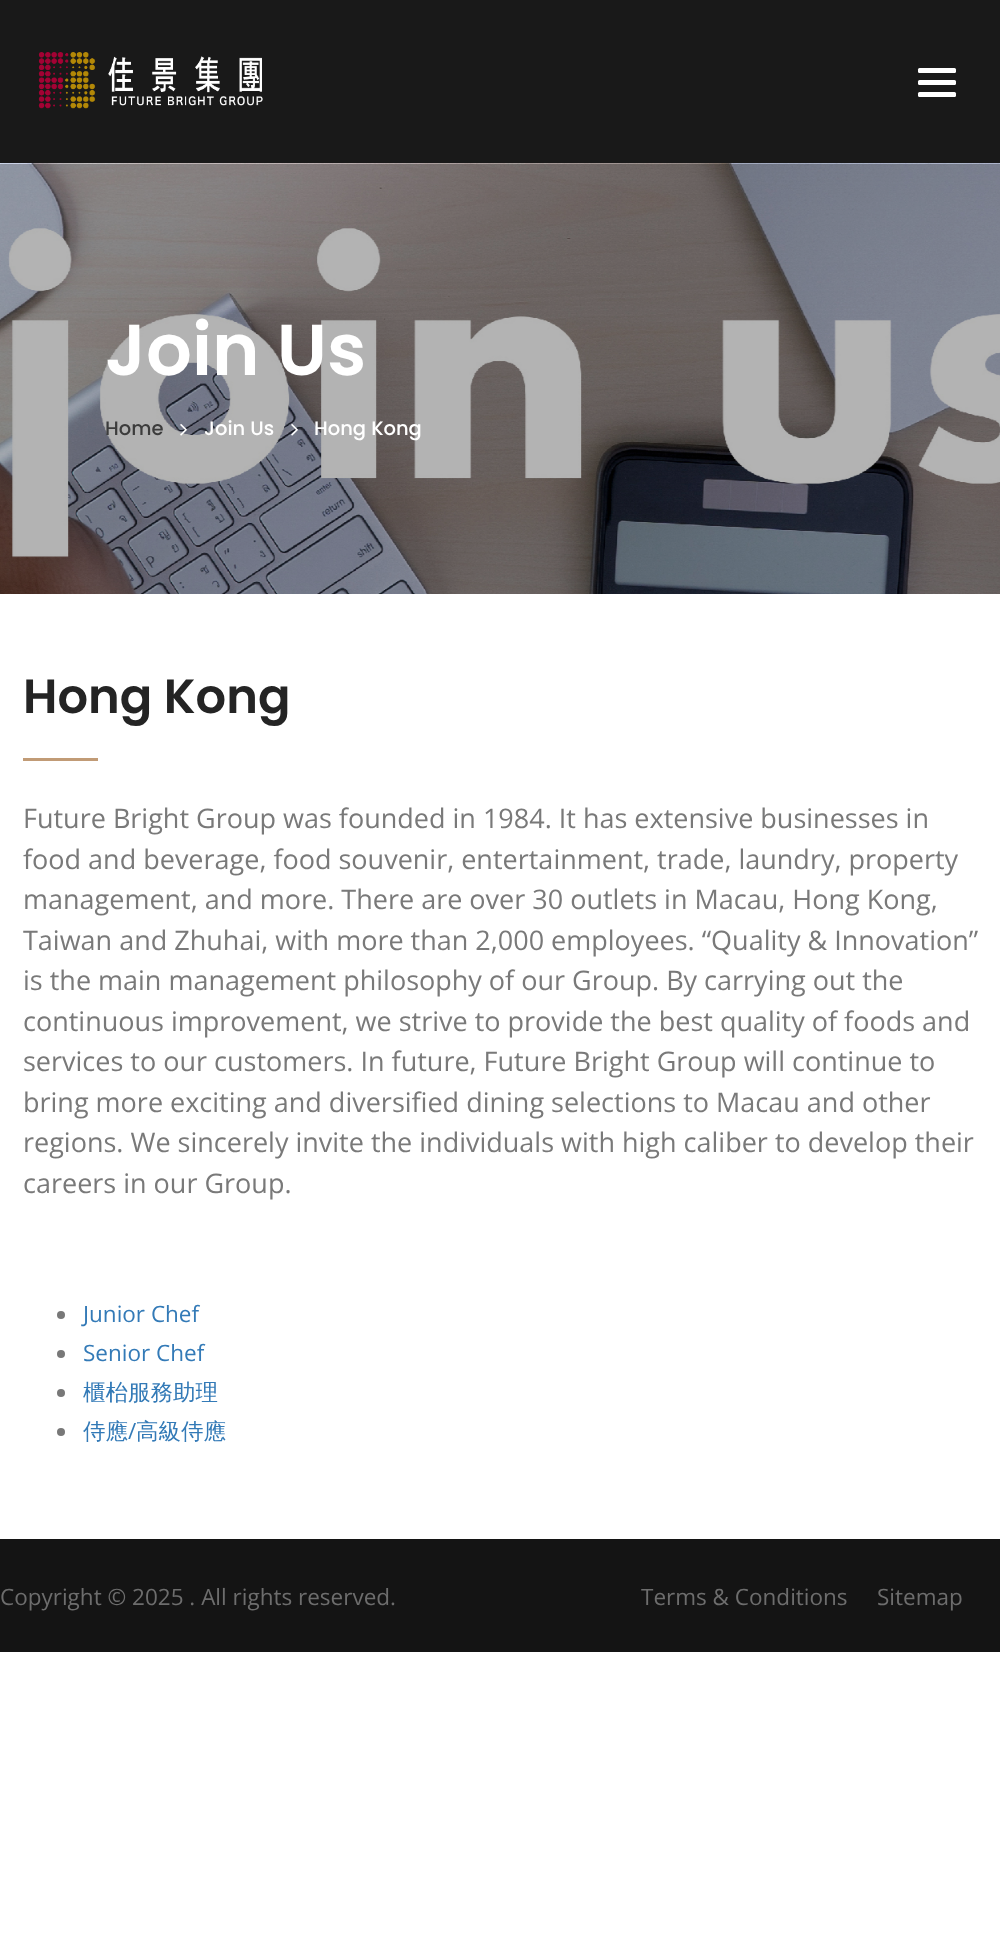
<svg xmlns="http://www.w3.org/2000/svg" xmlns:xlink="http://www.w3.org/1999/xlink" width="1000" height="1950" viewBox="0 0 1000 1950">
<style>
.cls-1{font:600 72px Poppins;fill:#ffffff}
.cls-2{font:500 19.5px Poppins;fill:#3c3c3c}
.cls-3{font:500 19.5px Poppins;fill:#ffffff}
.cls-4{font:600 48px Poppins;fill:#242424}
.cls-5{font:27px Open Sans;fill:#797979}
.cls-6{font:22.5px Open Sans;fill:#337ab7}
.cls-7{font:500 22.5px WenQuanYi Zen Hei;fill:#337ab7}
.cls-8{font:22.5px Open Sans;fill:#6d6d6d}
</style>
<rect width="100%" height="100%" fill="#ffffff"/>
<rect fill="#191919" x="0" y="0" width="1000" height="163"/>
<image xlink:href="image0.png" x="38" y="52" width="225" height="57"/>
<rect fill="#ffffff" x="918" y="68" width="38" height="5" rx="1.5"/>
<rect fill="#ffffff" x="918" y="80" width="38" height="5" rx="1.5"/>
<rect fill="#ffffff" x="918" y="92" width="38" height="5" rx="1.5"/>
<image xlink:href="image1.png" x="0" y="163" width="1000" height="431"/>
<image xlink:href="image2.png" x="180" y="424" width="7" height="12"/>
<image xlink:href="image3.png" x="291" y="424" width="7" height="12"/>
<rect fill="#c19b76" x="23" y="758" width="75" height="3"/>
<circle fill="#787878" cx="61" cy="1315" r="4"/>
<circle fill="#787878" cx="61" cy="1354" r="4"/>
<circle fill="#787878" cx="61" cy="1393" r="4"/>
<circle fill="#787878" cx="61" cy="1432" r="4"/>
<rect fill="#141414" x="0" y="1539" width="1000" height="113"/>
<text class="cls-1" x="105" y="375">Join Us</text>
<text class="cls-2" x="105" y="435">Home</text>
<text class="cls-3" x="204" y="435">Join Us</text>
<text class="cls-3" x="314" y="435">Hong Kong</text>
<text class="cls-4" x="23" y="713">Hong Kong</text>
<text class="cls-5"><tspan x="23" y="828">Future Bright Group was founded in 1984. It has extensive businesses in</tspan><tspan x="23" y="869">food and beverage, food souvenir, entertainment, trade, laundry, property</tspan><tspan x="23" y="909">management, and more. There are over 30 outlets in Macau, Hong Kong,</tspan><tspan x="23" y="950">Taiwan and Zhuhai, with more than 2,000 employees. “Quality &amp; Innovation”</tspan><tspan x="23" y="990">is the main management philosophy of our Group. By carrying out the</tspan><tspan x="23" y="1031">continuous improvement, we strive to provide the best quality of foods and</tspan><tspan x="23" y="1071">services to our customers. In future, Future Bright Group will continue to</tspan><tspan x="23" y="1112">bring more exciting and diversified dining selections to Macau and other</tspan><tspan x="23" y="1152">regions. We sincerely invite the individuals with high caliber to develop their</tspan><tspan x="23" y="1193">careers in our Group.</tspan></text>
<text class="cls-6"><tspan x="83" y="1322">Junior Chef</tspan><tspan x="83" y="1361">Senior Chef</tspan></text>
<text class="cls-7"><tspan x="83" y="1400">櫃枱服務助理</tspan><tspan x="83" y="1439">侍應</tspan></text>
<text class="cls-6" x="128" y="1439">/</text>
<text class="cls-7" x="136" y="1439">高級侍應</text>
<text class="cls-8" x="0" y="1605">Copyright © 2025 . All rights reserved.</text>
<text class="cls-8" x="641" y="1605">Terms &amp; Conditions</text>
<text class="cls-8" x="877" y="1605">Sitemap</text>
</svg>
